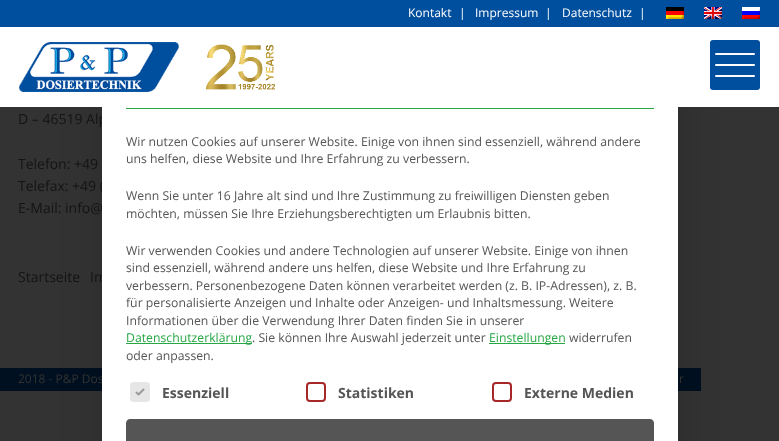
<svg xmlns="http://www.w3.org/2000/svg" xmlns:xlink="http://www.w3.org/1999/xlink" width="779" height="441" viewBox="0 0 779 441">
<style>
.cls-1{font:12px Open Sans;fill:#ffffff}
.cls-2{font:14px Open Sans;fill:#141414}
.cls-3{font:12px Open Sans;fill:#333333}
.cls-4{font:bold 14px Open Sans;fill:#555555}
.cls-5{font:12.25px Open Sans;fill:#555555}
.cls-6{font:12.25px Open Sans;fill:#28a745}
</style>
<rect width="100%" height="100%" fill="#333333"/>
<rect fill="#001020" x="0" y="368" width="701" height="23"/>
<rect fill="#000000" fill-opacity="0.25" filter="blur(25px)" x="114" y="53" width="552" height="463"/>
<rect fill="#004f9f" x="0" y="0" width="779" height="27"/>
<image xlink:href="image0.png" x="666" y="7" width="18" height="12"/>
<image xlink:href="image1.png" x="704" y="7" width="18" height="12"/>
<image xlink:href="image2.png" x="742" y="7" width="18" height="12"/>
<rect fill="#ffffff" x="0" y="27" width="779" height="80"/>
<image xlink:href="image3.png" x="19" y="42" width="160" height="50"/>
<image xlink:href="image4.png" x="205" y="44" width="70" height="46"/>
<rect fill="#004f9f" x="710" y="40" width="50" height="50" rx="3"/>
<rect fill="#fafafa" x="715" y="53" width="40" height="2" rx="1"/>
<rect fill="#fafafa" x="715" y="75" width="40" height="2" rx="1"/>
<rect fill="#ffffff" x="715" y="64" width="40" height="2" rx="1"/>
<text class="cls-1" x="408" y="17">Kontakt</text>
<text class="cls-1" x="459" y="17">|</text>
<text class="cls-1" x="475" y="17">Impressum</text>
<text class="cls-1" x="545" y="17">|</text>
<text class="cls-1" x="562" y="17">Datenschutz</text>
<text class="cls-1" x="639" y="17">|</text>
<text class="cls-2" x="18" y="124">D – 46519 Alp</text>
<text class="cls-2"><tspan x="18" y="169">Telefon: +49</tspan><tspan x="18" y="191">Telefax: +49 (</tspan><tspan x="18" y="213">E-Mail: info@</tspan></text>
<text class="cls-2" x="18" y="282">Startseite</text>
<text class="cls-2" x="90" y="282">Im</text>
<text class="cls-3" x="18" y="383">2018 - P&amp;P Dos</text>
<rect fill="#ffffff" x="102" y="107" width="576" height="334"/>
<text class="cls-4" x="524" y="398">Externe Medien</text>
<rect fill="none" stroke="#a72828" stroke-width="2" x="493" y="383" width="18" height="18" rx="3"/>
<text class="cls-4" x="338" y="398">Statistiken</text>
<rect fill="none" stroke="#a72828" stroke-width="2" x="307" y="383" width="18" height="18" rx="3"/>
<rect fill="#e6e6e6" stroke="#e6e6e6" stroke-width="2" x="131" y="383" width="18" height="18" rx="3"/>
<image xlink:href="image5.png" x="135" y="388" width="10" height="8"/>
<text class="cls-4" x="162" y="398">Essenziell</text>
<path fill="#555555" d="M130 419H650C652 419 654 421 654 423V441H126V423C126 421 128 419 130 419Z"/>
<text class="cls-5" x="126" y="360">oder anpassen.</text>
<text class="cls-5" x="569" y="342">widerrufen</text>
<rect fill="#28a745" x="489" y="343" width="76" height="1"/>
<text class="cls-6" x="489" y="342">Einstellungen</text>
<text class="cls-5" x="252" y="342">. Sie können Ihre Auswahl jederzeit unter</text>
<rect fill="#28a745" x="126" y="343" width="126" height="1"/>
<text class="cls-6" x="126" y="342">Datenschutzerklärung</text>
<text class="cls-5" x="126" y="325">Informationen über die Verwendung Ihrer Daten finden Sie in unserer</text>
<text class="cls-5" x="126" y="307">für personalisierte Anzeigen und Inhalte oder Anzeigen- und Inhaltsmessung. Weitere</text>
<text class="cls-5" x="126" y="290">verbessern. Personenbezogene Daten können verarbeitet werden (z. B. IP-Adressen), z. B.</text>
<text class="cls-5" x="126" y="272">sind essenziell, während andere uns helfen, diese Website und Ihre Erfahrung zu</text>
<text class="cls-5" x="126" y="255">Wir verwenden Cookies und andere Technologien auf unserer Website. Einige von ihnen</text>
<text class="cls-5" x="126" y="218">möchten, müssen Sie Ihre Erziehungsberechtigten um Erlaubnis bitten.</text>
<text class="cls-5" x="126" y="200">Wenn Sie unter 16 Jahre alt sind und Ihre Zustimmung zu freiwilligen Diensten geben</text>
<text class="cls-5" x="126" y="163">uns helfen, diese Website und Ihre Erfahrung zu verbessern.</text>
<text class="cls-5" x="126" y="146">Wir nutzen Cookies auf unserer Website. Einige von ihnen sind essenziell, während andere</text>
<rect fill="#28a745" x="126" y="108" width="528" height="1"/>
<text class="cls-3" x="679" y="383">r</text>
</svg>
